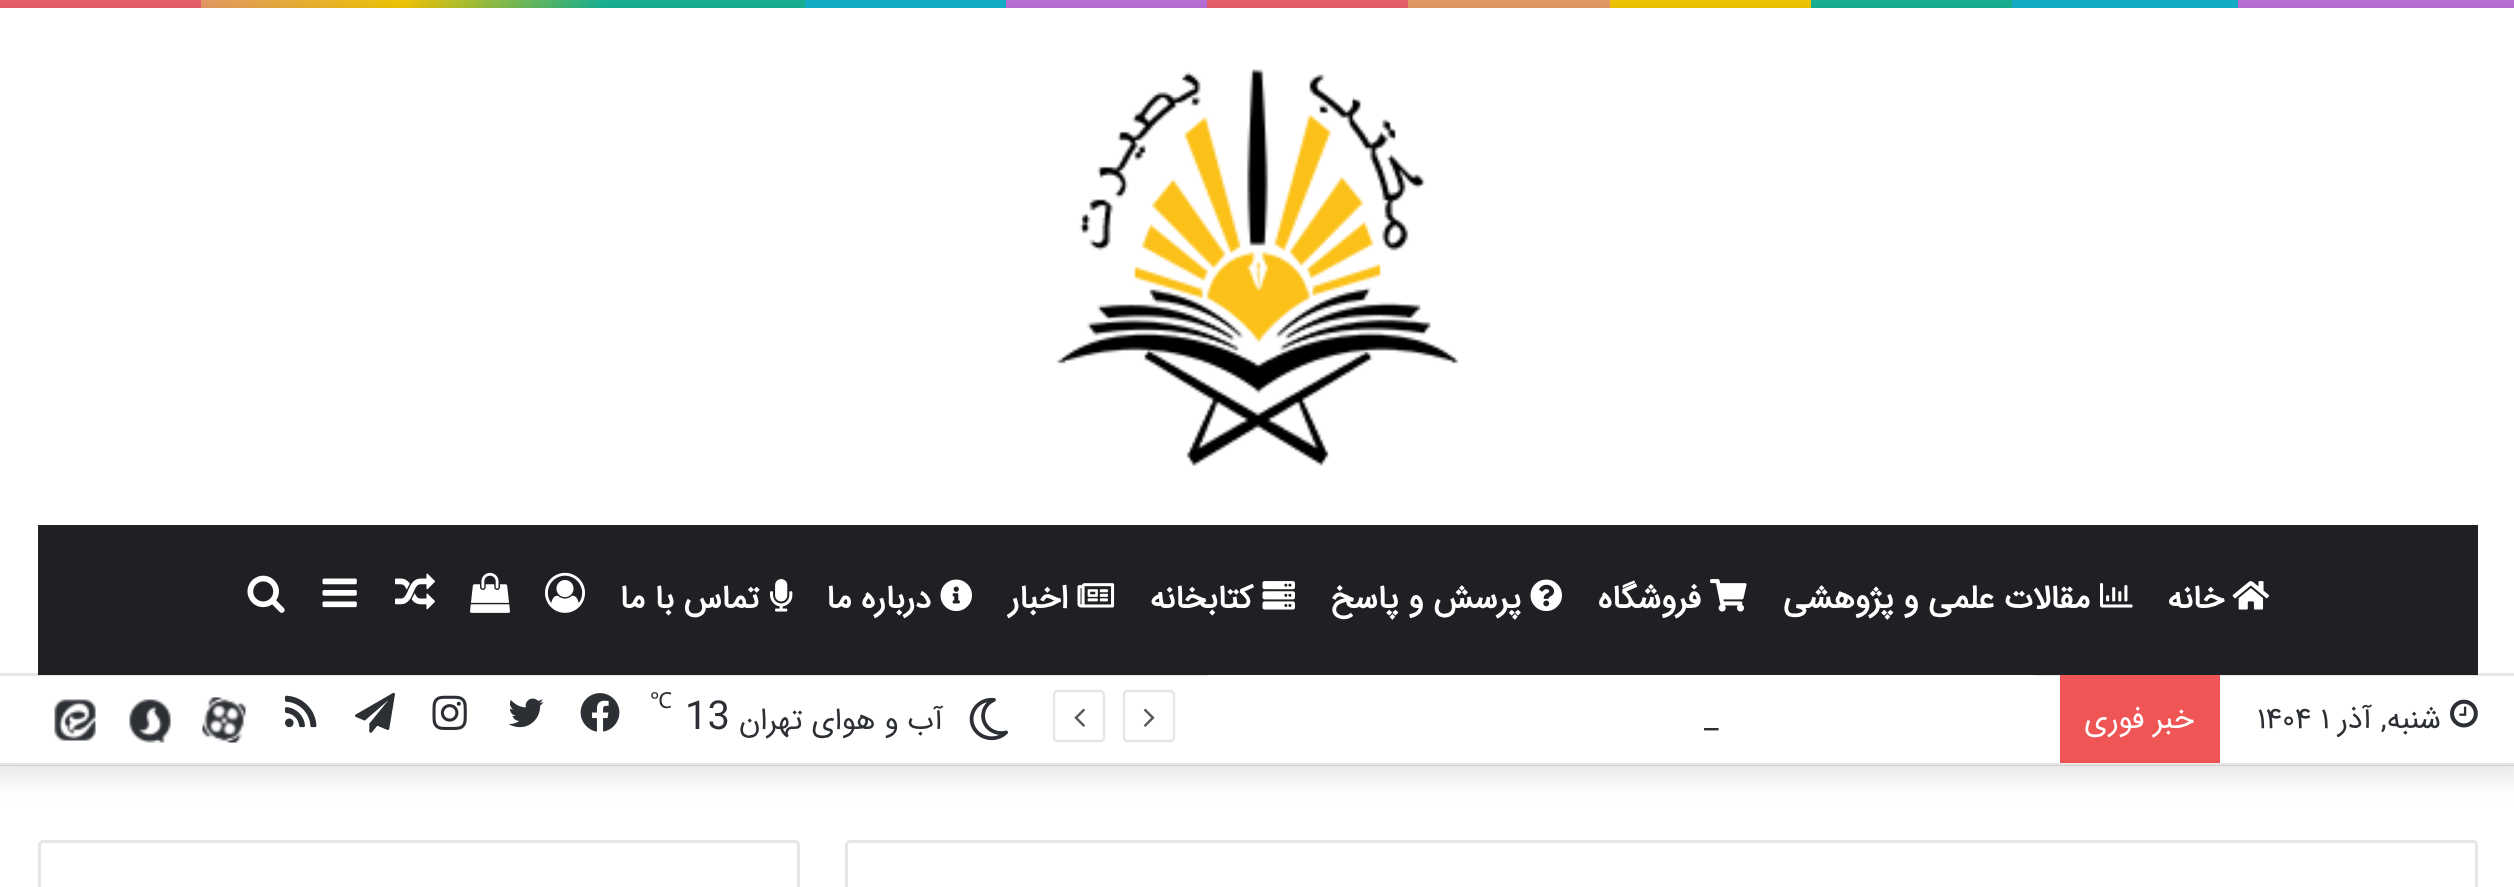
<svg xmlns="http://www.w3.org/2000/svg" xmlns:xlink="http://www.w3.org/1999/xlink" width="2514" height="887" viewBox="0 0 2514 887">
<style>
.cls-1{font:bold 32.5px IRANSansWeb;direction:rtl;fill:#ffffff}
.cls-2{font:30px IRANSansWeb;direction:rtl;fill:#2c2f34}
.cls-3{font:30px IRANSansWeb;fill:#2c2f34}
.cls-4{font:30px IRANSansWeb;direction:rtl;fill:#ffffff}
.cls-5{font:32.5px IRANSansWeb;fill:#2c2f34}
.cls-6{font:40px IRANSansWeb;fill:#2c2f34}
.cls-7{font:22px Noto Sans;fill:#2c2f34}
</style>
<defs>
<linearGradient id="g1" gradientUnits="userSpaceOnUse" x1="0" y1="3.8" x2="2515" y2="3.7"><stop offset="0" stop-color="#f76570"/><stop offset="0.08" stop-color="#f76570"/><stop offset="0.08" stop-color="#f3a46b"/><stop offset="0.16" stop-color="#ffd205"/><stop offset="0.24" stop-color="#1bbc9b"/><stop offset="0.32" stop-color="#1bbc9b"/><stop offset="0.32" stop-color="#14b9d5"/><stop offset="0.4" stop-color="#14b9d5"/><stop offset="0.4" stop-color="#c377e4"/><stop offset="0.48" stop-color="#c377e4"/><stop offset="0.48" stop-color="#f76570"/><stop offset="0.56" stop-color="#f76570"/><stop offset="0.56" stop-color="#f3a46b"/><stop offset="0.64" stop-color="#f3a46b"/><stop offset="0.64" stop-color="#ffd205"/><stop offset="0.72" stop-color="#ffd205"/><stop offset="0.72" stop-color="#1bbc9b"/><stop offset="0.8" stop-color="#1bbc9b"/><stop offset="0.8" stop-color="#14b9d5"/><stop offset="0.89" stop-color="#14b9d5"/><stop offset="0.89" stop-color="#c377e4"/><stop offset="1" stop-color="#c377e4"/></linearGradient>
<clipPath id="clip1"><path d="M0 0H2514V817H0ZM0 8H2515V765H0Z" clip-rule="evenodd"/></clipPath>
</defs>
<rect width="100%" height="100%" fill="#ffffff"/>
<rect fill="url(#g1)" x="0" y="0" width="2514" height="8"/>
<g clip-path="url(#clip1)">
<rect fill="#000000" fill-opacity="0.1" filter="blur(12.5px)" x="-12" y="-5" width="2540" height="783"/>
</g>
<image xlink:href="image0.png" x="1057" y="69" width="402" height="397"/>
<rect fill="#e6e6e6" x="0" y="673" width="2514" height="3"/>
<rect fill="#1f2024" x="38" y="525" width="2440" height="150"/>
<image xlink:href="image1.png" x="2232" y="581" width="38" height="29"/>
<image xlink:href="image2.png" x="2100" y="583" width="33" height="25"/>
<image xlink:href="image3.png" x="1710" y="579" width="37" height="33"/>
<image xlink:href="image4.png" x="1530" y="579" width="32" height="33"/>
<image xlink:href="image5.png" x="1262" y="581" width="33" height="29"/>
<image xlink:href="image6.png" x="1077" y="583" width="38" height="25"/>
<image xlink:href="image7.png" x="940" y="579" width="32" height="33"/>
<image xlink:href="image8.png" x="770" y="579" width="23" height="33"/>
<image xlink:href="image9.png" x="545" y="572" width="40" height="41"/>
<image xlink:href="image10.png" x="470" y="572" width="40" height="41"/>
<image xlink:href="image11.png" x="395" y="573" width="40" height="37"/>
<image xlink:href="image12.png" x="322" y="578" width="35" height="30"/>
<image xlink:href="image13.png" x="247" y="575" width="38" height="38"/>
<rect fill="#000000" fill-opacity="0.1" x="0" y="763" width="2514" height="3"/>
<image xlink:href="image14.png" x="2450" y="699" width="28" height="29"/>
<rect fill="#f05555" x="2060" y="675" width="160" height="88"/>
<rect fill="#ffffff" x="1208" y="675" width="827" height="1"/>
<path fill="none" stroke="#e6e6e6" stroke-width="2.5" d="M1170 741H1127.5C1125.5 741 1124 739.5 1124 737.5V695C1124 693 1125.5 691 1127.5 691H1170C1172 691 1174 693 1174 695V737.5C1174 739.5 1172 741 1170 741Z"/>
<image xlink:href="image15.png" x="1143" y="708" width="12" height="19"/>
<path fill="none" stroke="#e6e6e6" stroke-width="2.5" d="M1100 741H1057.5C1055.5 741 1054 739.5 1054 737.5V695C1054 693 1055.5 691 1057.5 691H1100C1102 691 1104 693 1104 695V737.5C1104 739.5 1102 741 1100 741Z"/>
<image xlink:href="image16.png" x="1074" y="708" width="11" height="19"/>
<image xlink:href="image17.png" x="969" y="697" width="39" height="44"/>
<image xlink:href="image18.png" x="580" y="693" width="40" height="39"/>
<image xlink:href="image19.png" x="508" y="698" width="36" height="30"/>
<image xlink:href="image20.png" x="432" y="695" width="35" height="35"/>
<image xlink:href="image21.png" x="355" y="692" width="40" height="41"/>
<image xlink:href="image22.png" x="285" y="695" width="32" height="33"/>
<image xlink:href="image23.png" x="202" y="697" width="44" height="46"/>
<image xlink:href="image24.png" x="129" y="699" width="42" height="44"/>
<image xlink:href="image25.png" x="54" y="699" width="42" height="42"/>
<path fill="none" stroke="#e6e6e6" stroke-width="3" d="M850 841.5H2473C2475 841.5 2476.5 843 2476.5 845V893.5H846.5V845C846.5 843 848 841.5 850 841.5Z"/>
<rect fill="none" stroke="#e6e6e6" stroke-width="3" x="39.5" y="841.5" width="759" height="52" rx="3.5"/>
<text class="cls-1" x="2224" y="608">خانه</text>
<text class="cls-1" x="2090" y="608">مقالات علمی و پژوهشی</text>
<text class="cls-1" x="1701" y="608">فروشگاه</text>
<text class="cls-1" x="1521" y="608">پرسش و پاسخ</text>
<text class="cls-1" x="1253" y="608">کتابخانه</text>
<text class="cls-1" x="1068" y="608">اخبار</text>
<text class="cls-1" x="931" y="608">درباره ما</text>
<text class="cls-1" x="759" y="608">تماس با ما</text>
<text class="cls-2" x="2441" y="728">شنبه, آذر</text>
<text class="cls-3" x="2257" y="728">۱۴۰۴ ۱</text>
<text class="cls-4" x="2194" y="728">خبر فوری</text>
<text class="cls-5" x="1704" y="728">_</text>
<text class="cls-2" x="943" y="729">آب و هوای تهران</text>
<text class="cls-6" x="685" y="729">13</text>
<text class="cls-7" x="650" y="708">℃</text>
</svg>
